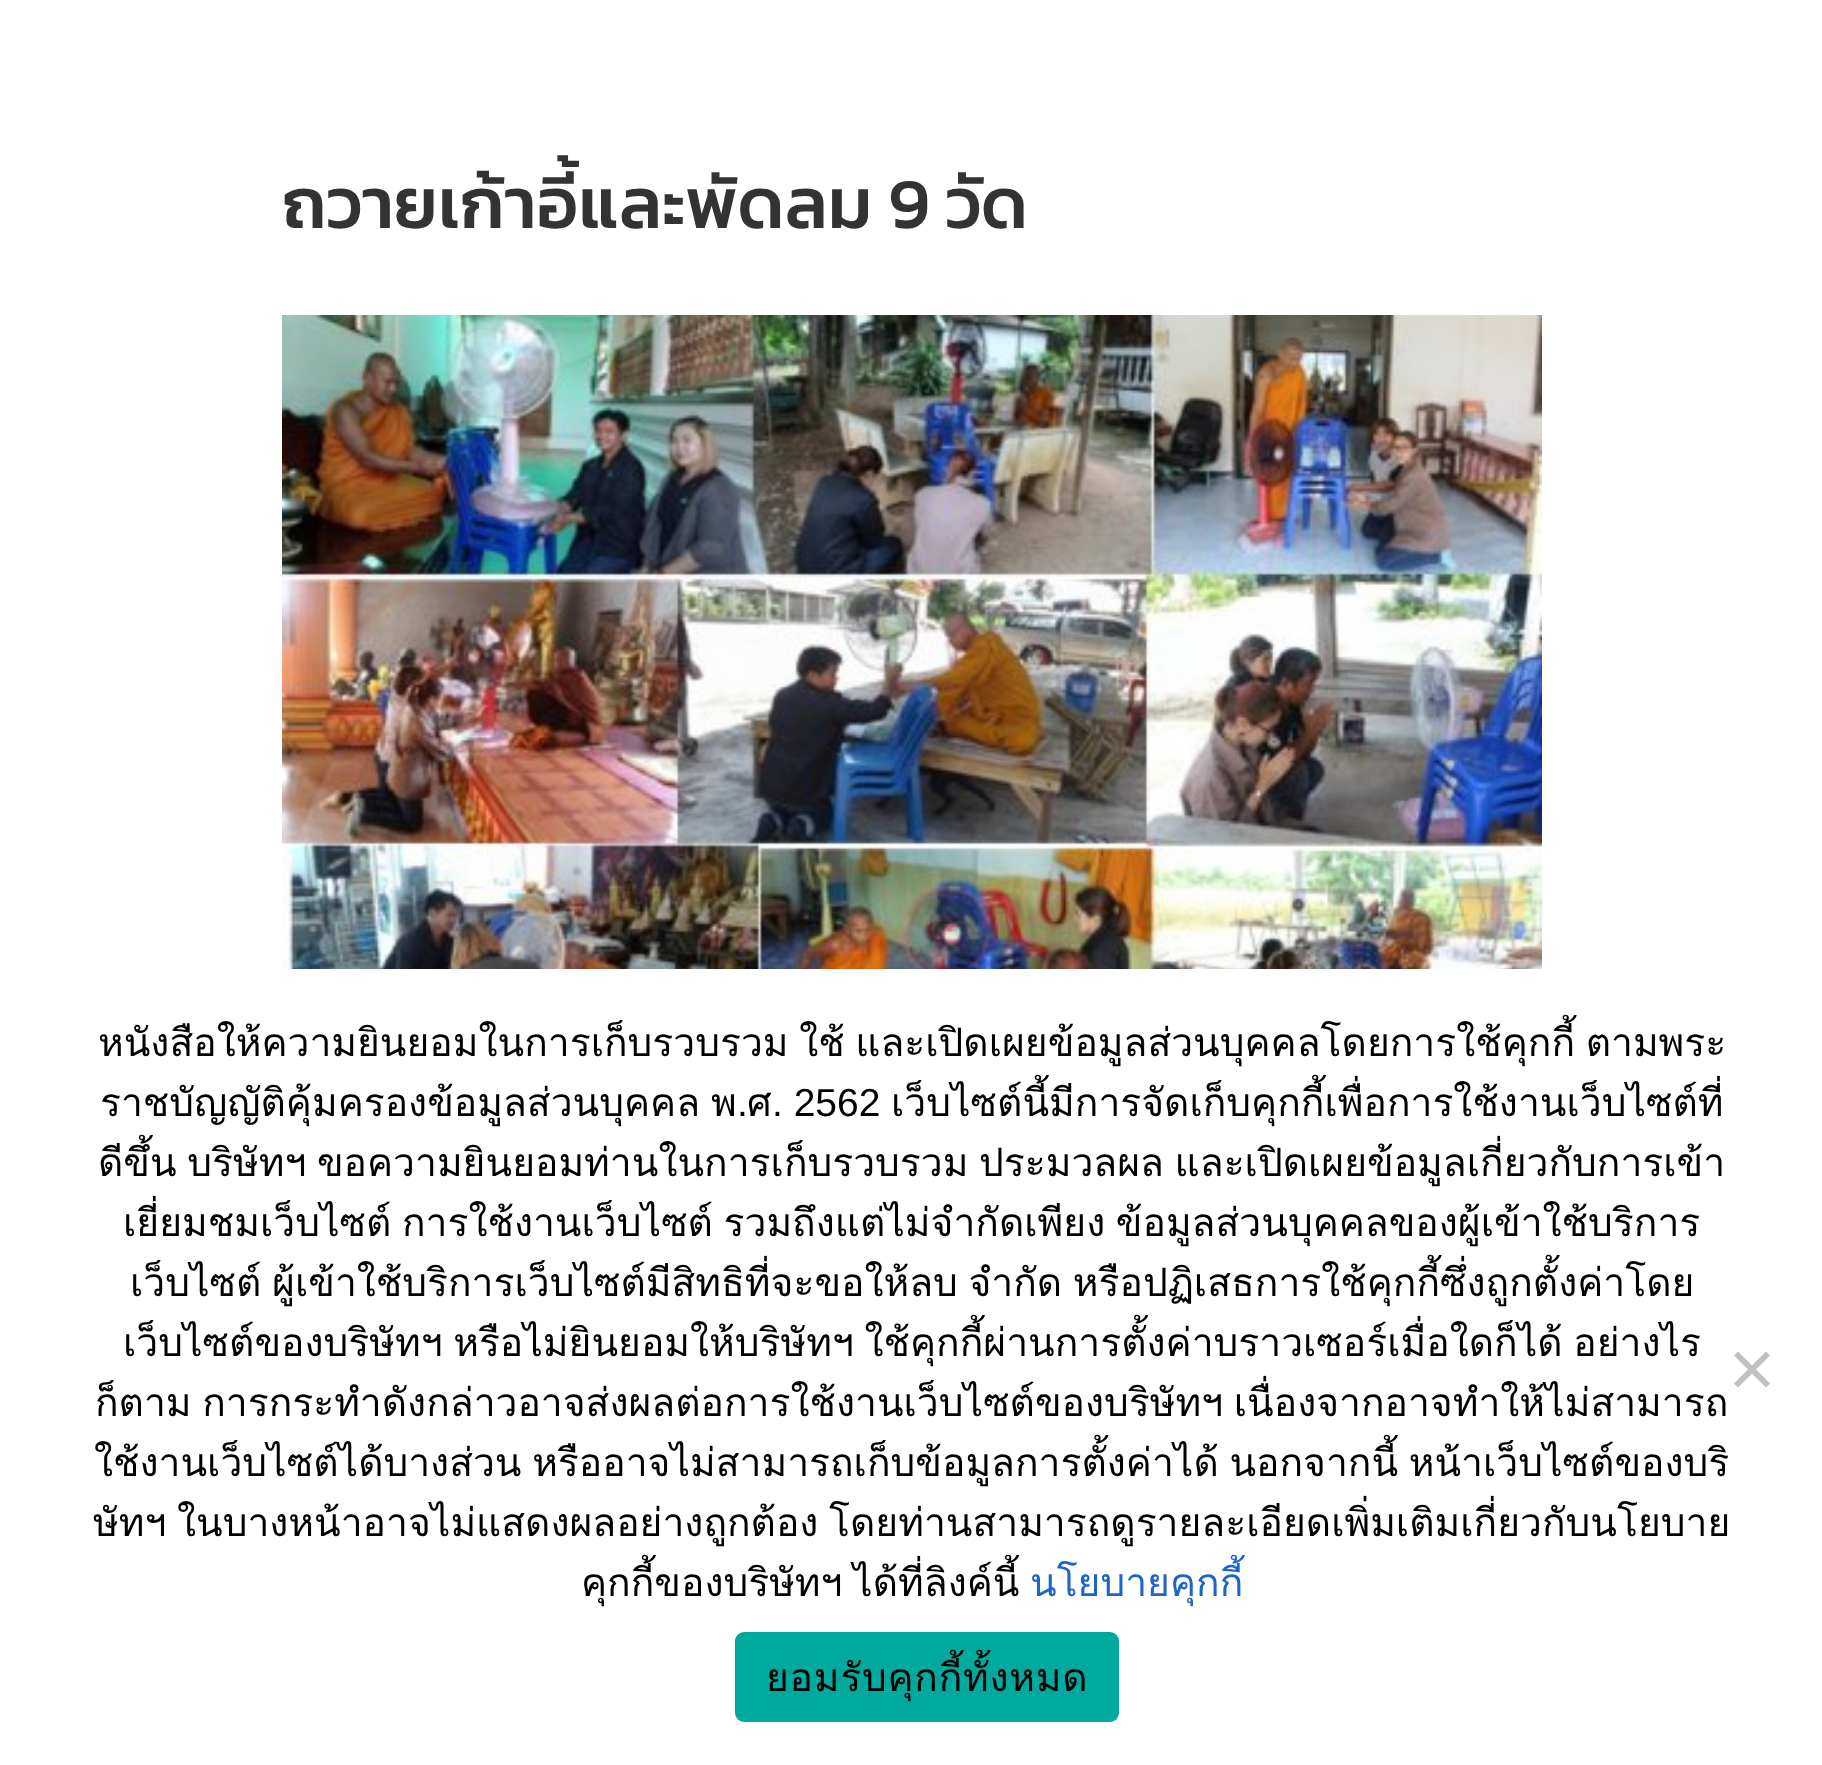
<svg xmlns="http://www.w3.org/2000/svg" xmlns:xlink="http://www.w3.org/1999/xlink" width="1822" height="1765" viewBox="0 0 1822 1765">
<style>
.cls-1{font:500 72px Kanit;fill:#333333}
.cls-2{font:39px Loma;fill:#000000}
.cls-3{font:39px Liberation Sans;fill:#000000}
.cls-4{font:39px Loma;fill:#1c64c9}
.cls-5{font:39px Loma;letter-spacing:0.75px;fill:#000000}
</style>
<rect width="100%" height="100%" fill="#ffffff"/>
<image xlink:href="image0.png" x="282" y="315" width="1260" height="654"/>
<path fill="#c0c0c0" d="M1766 1351.5L1770 1355.5L1738 1387.5L1734 1383.5Z"/>
<path fill="#c0c0c0" d="M1734 1355.5L1738 1351.5L1770 1383.5L1766 1387.5Z"/>
<rect fill="#00a99d" x="735" y="1632" width="384" height="90" rx="9"/>
<text class="cls-1" x="282" y="228">ถวายเก้าอี้และพัดลม 9 วัด</text>
<text class="cls-2" x="98" y="1056" word-spacing="-2.5">หนังสือให้ความยินยอมในการเก็บรวบรวม ใช้ และเปิดเผยข้อมูลส่วนบุคคลโดยการใช้คุกกี้ ตามพระ</text>
<text class="cls-2" x="100" y="1116">ราชบัญญัติคุ้มครองข้อมูลส่วนบุคคล</text>
<text class="cls-2" x="711" y="1116">พ</text>
<text class="cls-3" x="737" y="1116">.</text>
<text class="cls-2" x="747" y="1116">ศ</text>
<text class="cls-3" x="772" y="1116">. 2562</text>
<text class="cls-2" x="891" y="1116">เว็บไซต์นี้มีการจัดเก็บคุกกี้เพื่อการใช้งานเว็บไซต์ที่</text>
<text class="cls-2" x="98" y="1176" word-spacing="-2.5">ดีขึ้น บริษัทฯ ขอความยินยอมท่านในการเก็บรวบรวม ประมวลผล และเปิดเผยข้อมูลเกี่ยวกับการเข้า</text>
<text class="cls-2" x="123" y="1236" word-spacing="-2.5">เยี่ยมชมเว็บไซต์ การใช้งานเว็บไซต์ รวมถึงแต่ไม่จำกัดเพียง ข้อมูลส่วนบุคคลของผู้เข้าใช้บริการ</text>
<text class="cls-2" x="130" y="1296" word-spacing="-2.5">เว็บไซต์ ผู้เข้าใช้บริการเว็บไซต์มีสิทธิที่จะขอให้ลบ จำกัด หรือปฏิเสธการใช้คุกกี้ซึ่งถูกตั้งค่าโดย</text>
<text class="cls-2" x="123" y="1356" word-spacing="-2.5">เว็บไซต์ของบริษัทฯ หรือไม่ยินยอมให้บริษัทฯ ใช้คุกกี้ผ่านการตั้งค่าบราวเซอร์เมื่อใดก็ได้ อย่างไร</text>
<text class="cls-2" x="95" y="1416" word-spacing="-2.5">ก็ตาม การกระทำดังกล่าวอาจส่งผลต่อการใช้งานเว็บไซต์ของบริษัทฯ เนื่องจากอาจทำให้ไม่สามารถ</text>
<text class="cls-2" x="94" y="1476" word-spacing="-2.5">ใช้งานเว็บไซต์ได้บางส่วน หรืออาจไม่สามารถเก็บข้อมูลการตั้งค่าได้ นอกจากนี้ หน้าเว็บไซต์ของบริ</text>
<text class="cls-2" x="93" y="1536" word-spacing="-2.5">ษัทฯ ในบางหน้าอาจไม่แสดงผลอย่างถูกต้อง โดยท่านสามารถดูรายละเอียดเพิ่มเติมเกี่ยวกับนโยบาย</text>
<text class="cls-2" x="581" y="1596" word-spacing="-2.5">คุกกี้ของบริษัทฯ ได้ที่ลิงค์นี้</text>
<text class="cls-4" x="1030" y="1596">นโยบายคุกกี้</text>
<text class="cls-5" x="766" y="1691">ยอมรับคุกกี้ทั้งหมด</text>
</svg>
